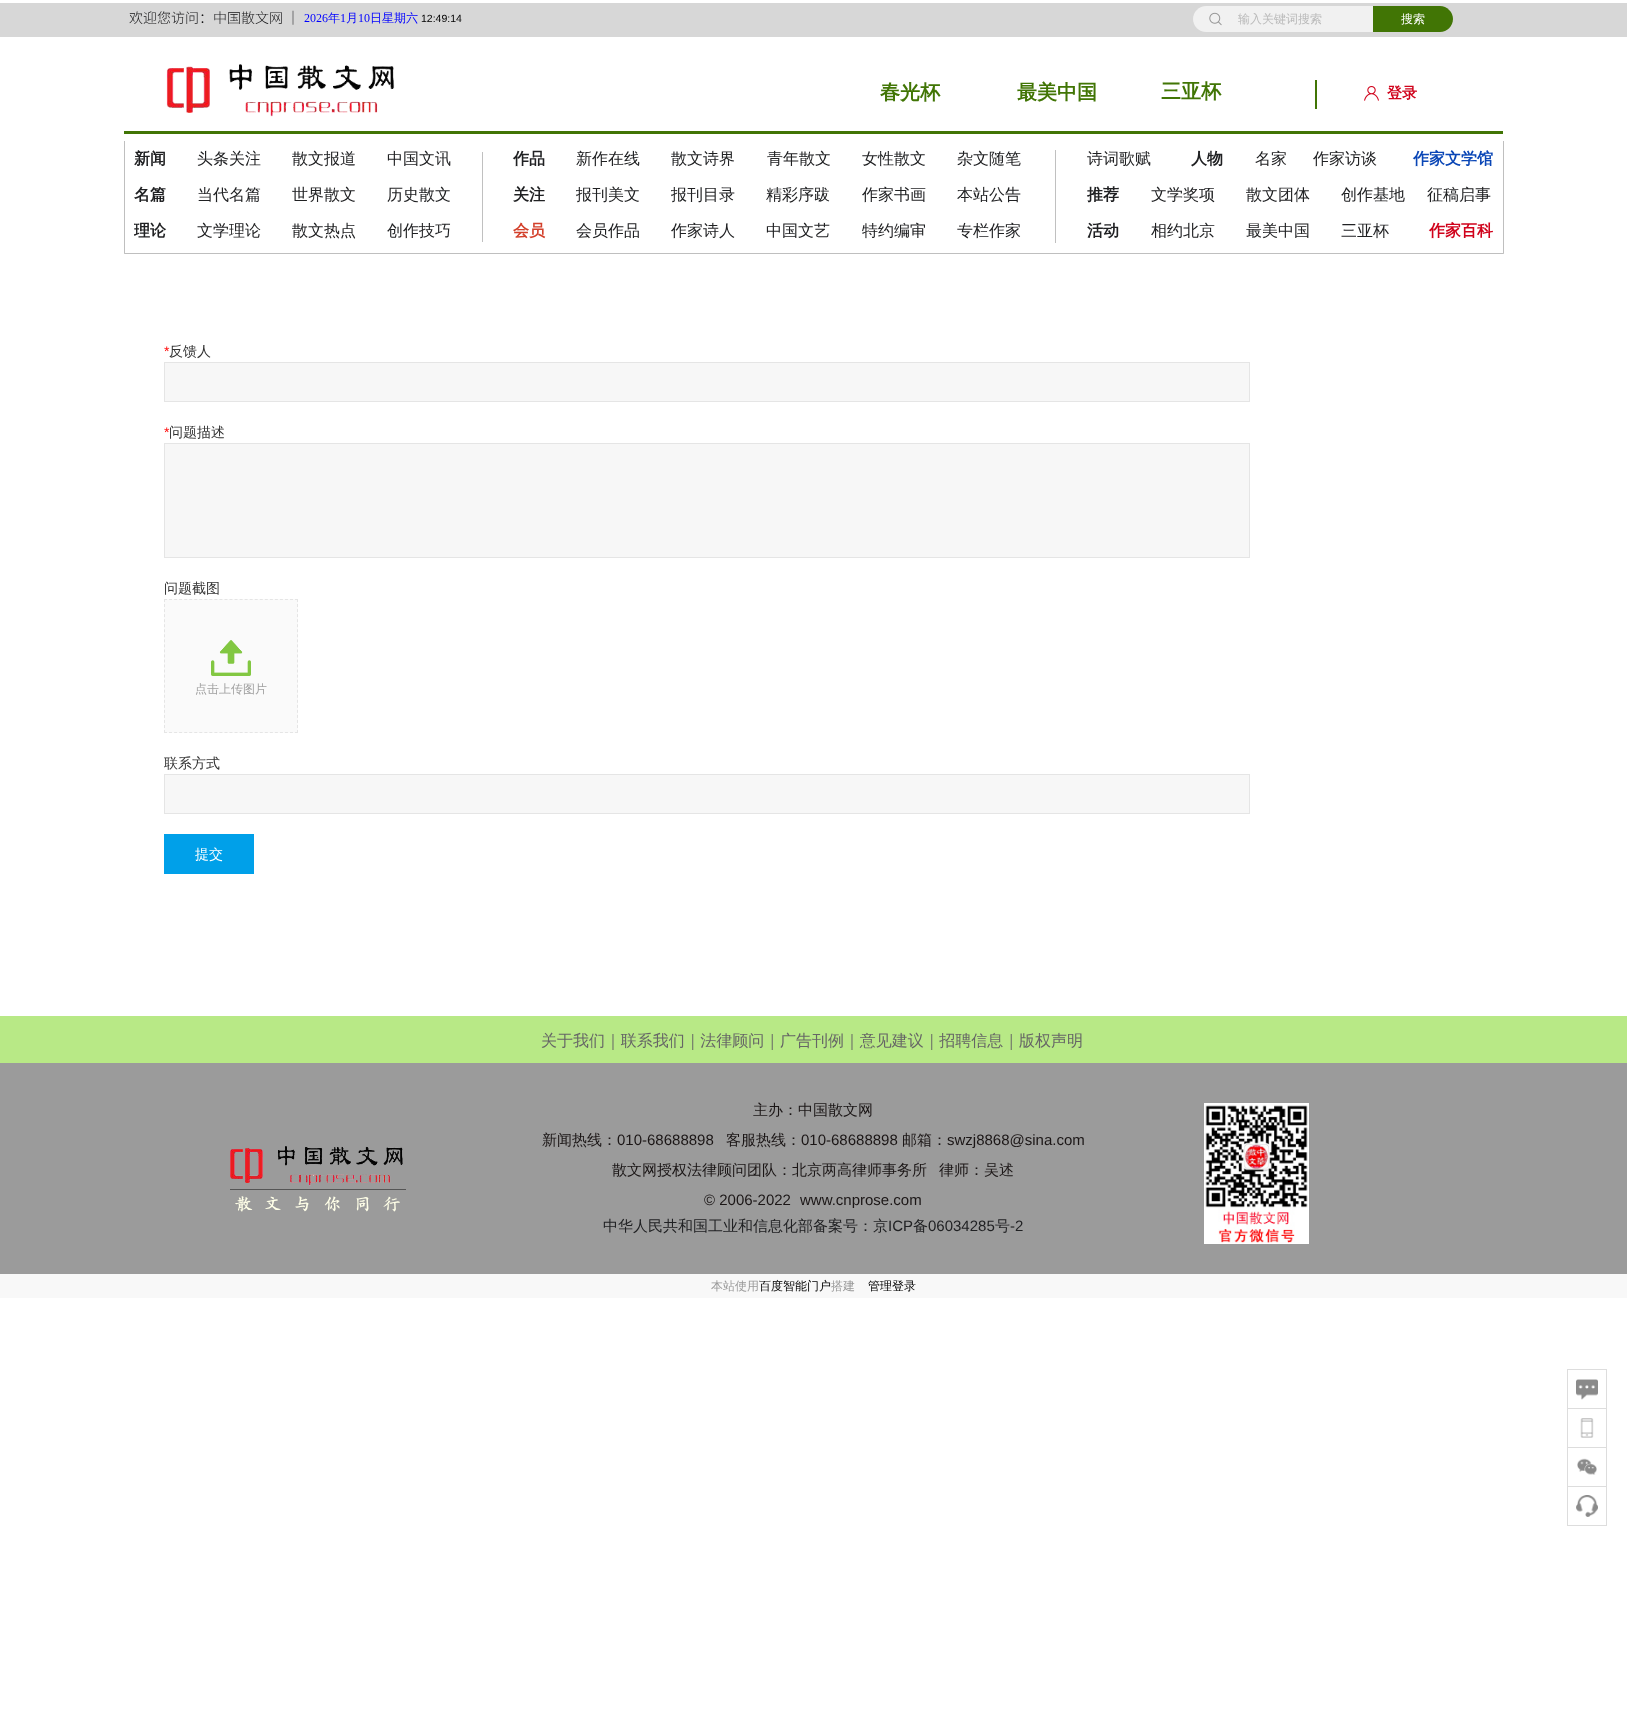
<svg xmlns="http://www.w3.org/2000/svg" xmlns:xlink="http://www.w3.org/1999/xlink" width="1627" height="1726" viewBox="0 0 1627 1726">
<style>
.cls-1{font:300 14px Noto Sans SC;fill:#151517}
.cls-2{font:12px Liberation Serif;fill:#0000ff}
.cls-3{font:500 12px WenQuanYi Zen Hei;fill:#0000ff}
.cls-4{font:10.5px Liberation Sans;fill:#000000}
.cls-5{font:500 12px WenQuanYi Zen Hei;fill:#bababa}
.cls-6{font:500 12px WenQuanYi Zen Hei;fill:#ffffff}
.cls-7{font:bold 20px WenQuanYi Zen Hei;fill:#417505}
.cls-8{font:bold 15px WenQuanYi Zen Hei;fill:#d0021b}
.cls-9{font:bold 16px WenQuanYi Zen Hei;fill:#202123}
.cls-10{font:500 16px WenQuanYi Zen Hei;fill:#202123}
.cls-11{font:bold 16px WenQuanYi Zen Hei;fill:#0a46b6}
.cls-12{font:bold 16px WenQuanYi Zen Hei;fill:#d3402b}
.cls-13{font:bold 16px WenQuanYi Zen Hei;fill:#d0021b}
.cls-14{font:14px Liberation Sans;fill:#ff0000}
.cls-15{font:500 14px WenQuanYi Zen Hei;fill:#333333}
.cls-16{font:500 12px WenQuanYi Zen Hei;fill:#a0a0a0}
.cls-17{font:500 14px WenQuanYi Zen Hei;fill:#ffffff}
.cls-18{font:500 16px WenQuanYi Zen Hei;fill:#666666}
.cls-19{font:500 15px WenQuanYi Zen Hei;fill:#1b1616}
.cls-20{font:15px Liberation Sans;fill:#1b1616}
.cls-21{font:500 15px WenQuanYi Zen Hei;fill:#202123}
.cls-22{font:15px Liberation Sans;fill:#202123}
.cls-23{font:bold 17px 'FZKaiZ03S';fill:#ffffe8}
.cls-24{font:500 12px WenQuanYi Zen Hei;fill:#999999}
.cls-25{font:500 12px WenQuanYi Zen Hei;fill:#000000}
</style>
<rect width="100%" height="100%" fill="#ffffff"/>
<rect fill="#d7d7d7" x="0" y="3" width="1627" height="34"/>
<path fill="#f1f1f1" d="M1206 6H1373V32H1206C1199 32 1193 26 1193 19C1193 12 1199 6 1206 6Z"/>
<image xlink:href="image0.png" x="1209" y="12" width="13" height="14"/>
<path fill="#417505" d="M1373 6H1440C1447 6 1453 12 1453 19C1453 26 1447 32 1440 32H1373Z"/>
<image xlink:href="image1.png" x="166" y="64" width="229" height="53"/>
<rect fill="#417505" x="1315" y="80" width="2" height="29"/>
<image xlink:href="image2.png" x="1364" y="86" width="15" height="15"/>
<rect fill="#417505" x="124" y="131" width="1379" height="3"/>
<path fill="#bfbfbf" d="M1504 141V254L1503 253V141Z"/>
<path fill="#9b9b9b" fill-opacity="0.64" d="M1504 254H124L125 253H1503Z"/>
<path fill="#9b9b9b" fill-opacity="0.64" d="M124 254V141H125V253Z"/>
<rect fill="#c0c0c0" x="482" y="152" width="1" height="90"/>
<rect fill="#c0c0c0" x="1055" y="150" width="1" height="93"/>
<rect fill="#f7f7f7" stroke="#e5e5e5" x="164.5" y="362.5" width="1085" height="39"/>
<rect fill="#f7f7f7" stroke="#e5e5e5" x="164.5" y="443.5" width="1085" height="114"/>
<rect fill="#fafafa" x="164" y="599" width="134" height="134"/>
<path fill="none" stroke="#e5e5e5" stroke-dasharray="3 2.04" d="M164 599.5H298"/>
<path fill="none" stroke="#e5e5e5" stroke-dasharray="3 2.04" d="M297.5 599V733"/>
<path fill="none" stroke="#e5e5e5" stroke-dasharray="3 2.04" d="M164 732.5H298"/>
<path fill="none" stroke="#e5e5e5" stroke-dasharray="3 2.04" d="M164.5 599V733"/>
<image xlink:href="image3.png" x="211" y="640" width="40" height="36"/>
<rect fill="#f7f7f7" stroke="#e5e5e5" x="164.5" y="774.5" width="1085" height="39"/>
<rect fill="#00a0e9" x="164" y="834" width="90" height="40"/>
<rect fill="#9b9b9b" x="0" y="1063" width="1627" height="211"/>
<rect fill="#b8e986" x="0" y="1016" width="1627" height="47"/>
<image xlink:href="image4.png" x="230" y="1146" width="173" height="40"/>
<image xlink:href="image5.png" x="1204" y="1103" width="105" height="141"/>
<rect fill="#555555" x="230" y="1189" width="176" height="1"/>
<rect fill="#f8f8f8" x="0" y="1274" width="1627" height="24"/>
<rect fill="none" stroke="#dddddd" x="1567.5" y="1369.5" width="39" height="39"/>
<image xlink:href="image6.png" x="1576" y="1379" width="22" height="21"/>
<rect fill="none" stroke="#dddddd" x="1567.5" y="1408.5" width="39" height="39"/>
<image xlink:href="image7.png" x="1580" y="1418" width="14" height="20"/>
<rect fill="none" stroke="#dddddd" x="1567.5" y="1447.5" width="39" height="39"/>
<image xlink:href="image8.png" x="1577" y="1458" width="20" height="17"/>
<rect fill="none" stroke="#dddddd" x="1567.5" y="1486.5" width="39" height="39"/>
<image xlink:href="image9.png" x="1576" y="1495" width="22" height="22"/>
<text class="cls-1" x="129" y="23">欢迎您访问：中国散文网 ｜</text>
<text class="cls-2" x="304" y="22">2026</text>
<text class="cls-3" x="328" y="22">年</text>
<text class="cls-2" x="340" y="22">1</text>
<text class="cls-3" x="346" y="22">月</text>
<text class="cls-2" x="358" y="22">10</text>
<text class="cls-3" x="370" y="22">日星期六</text>
<text class="cls-4" x="421" y="22">12:49:14</text>
<text class="cls-5" x="1238" y="23">输入关键词搜索</text>
<text class="cls-6" x="1401" y="23">搜索</text>
<text class="cls-7" x="880" y="99">春光杯</text>
<text class="cls-7" x="1017" y="99">最美中国</text>
<text class="cls-7" x="1161" y="98">三亚杯</text>
<text class="cls-8" x="1387" y="98">登录</text>
<text class="cls-9" x="134" y="164">新闻</text>
<text class="cls-10" x="197" y="164">头条关注</text>
<text class="cls-10" x="292" y="164">散文报道</text>
<text class="cls-10" x="387" y="164">中国文讯</text>
<text class="cls-9" x="513" y="164">作品</text>
<text class="cls-10" x="576" y="164">新作在线</text>
<text class="cls-10" x="671" y="164">散文诗界</text>
<text class="cls-10" x="767" y="164">青年散文</text>
<text class="cls-10" x="862" y="164">女性散文</text>
<text class="cls-10" x="957" y="164">杂文随笔</text>
<text class="cls-10" x="1087" y="164">诗词歌赋</text>
<text class="cls-9" x="1191" y="164">人物</text>
<text class="cls-10" x="1255" y="164">名家</text>
<text class="cls-10" x="1313" y="164">作家访谈</text>
<text class="cls-11" x="1413" y="164">作家文学馆</text>
<text class="cls-9" x="134" y="200">名篇</text>
<text class="cls-10" x="197" y="200">当代名篇</text>
<text class="cls-10" x="292" y="200">世界散文</text>
<text class="cls-10" x="387" y="200">历史散文</text>
<text class="cls-9" x="513" y="200">关注</text>
<text class="cls-10" x="576" y="200">报刊美文</text>
<text class="cls-10" x="671" y="200">报刊目录</text>
<text class="cls-10" x="766" y="200">精彩序跋</text>
<text class="cls-10" x="862" y="200">作家书画</text>
<text class="cls-10" x="957" y="200">本站公告</text>
<text class="cls-9" x="1087" y="200">推荐</text>
<text class="cls-10" x="1151" y="200">文学奖项</text>
<text class="cls-10" x="1246" y="200">散文团体</text>
<text class="cls-10" x="1341" y="200">创作基地</text>
<text class="cls-10" x="1427" y="200">征稿启事</text>
<text class="cls-9" x="134" y="236">理论</text>
<text class="cls-10" x="197" y="236">文学理论</text>
<text class="cls-10" x="292" y="236">散文热点</text>
<text class="cls-10" x="387" y="236">创作技巧</text>
<text class="cls-12" x="513" y="236">会员</text>
<text class="cls-10" x="576" y="236">会员作品</text>
<text class="cls-10" x="671" y="236">作家诗人</text>
<text class="cls-10" x="766" y="236">中国文艺</text>
<text class="cls-10" x="862" y="236">特约编审</text>
<text class="cls-10" x="957" y="236">专栏作家</text>
<text class="cls-9" x="1087" y="236">活动</text>
<text class="cls-10" x="1151" y="236">相约北京</text>
<text class="cls-10" x="1246" y="236">最美中国</text>
<text class="cls-10" x="1341" y="236">三亚杯</text>
<text class="cls-13" x="1429" y="236">作家百科</text>
<text class="cls-14" x="164" y="356">*</text>
<text class="cls-15" x="169" y="356">反馈人</text>
<text class="cls-14" x="164" y="437">*</text>
<text class="cls-15" x="169" y="437">问题描述</text>
<text class="cls-15" x="164" y="593">问题截图</text>
<text class="cls-16" x="195" y="693">点击上传图片</text>
<text class="cls-15" x="164" y="768">联系方式</text>
<text class="cls-17" x="195" y="859">提交</text>
<text class="cls-18" x="541" y="1046">关于我们｜联系我们｜法律顾问｜广告刊例｜意见建议｜招聘信息｜版权声明</text>
<text class="cls-19" x="753" y="1115">主办：中国散文网</text>
<text class="cls-19" x="542" y="1145">新闻热线：</text>
<text class="cls-20" x="617" y="1145">010-68688898</text>
<text class="cls-19" x="726" y="1145">客服热线：</text>
<text class="cls-20" x="801" y="1145">010-68688898</text>
<text class="cls-19" x="902" y="1145">邮箱：</text>
<text class="cls-20" x="947" y="1145">swzj8868@sina.com</text>
<text class="cls-19" x="612" y="1175">散文网授权法律顾问团队：北京两高律师事务所</text>
<text class="cls-19" x="939" y="1175">律师：吴述</text>
<text class="cls-20" x="704" y="1205">© 2006-2022</text>
<text class="cls-20" x="800" y="1205">www.cnprose.com</text>
<text class="cls-21" x="603" y="1231">中华人民共和国工业和信息化部备案号：京</text>
<text class="cls-22" x="888" y="1231">ICP</text>
<text class="cls-21" x="913" y="1231">备</text>
<text class="cls-22" x="928" y="1231">06034285</text>
<text class="cls-21" x="995" y="1231">号</text>
<text class="cls-22" x="1010" y="1231">-2</text>
<text class="cls-23" x="235" y="1210">散</text>
<text class="cls-23" x="264" y="1210">文</text>
<text class="cls-23" x="294" y="1210">与</text>
<text class="cls-23" x="324" y="1210">你</text>
<text class="cls-23" x="354" y="1210">同</text>
<text class="cls-23" x="383" y="1210">行</text>
<text class="cls-24" x="711" y="1290">本站使用</text>
<text class="cls-25" x="759" y="1290">百度智能门户</text>
<text class="cls-24" x="831" y="1290">搭建</text>
<text class="cls-25" x="868" y="1290">管理登录</text>
</svg>
